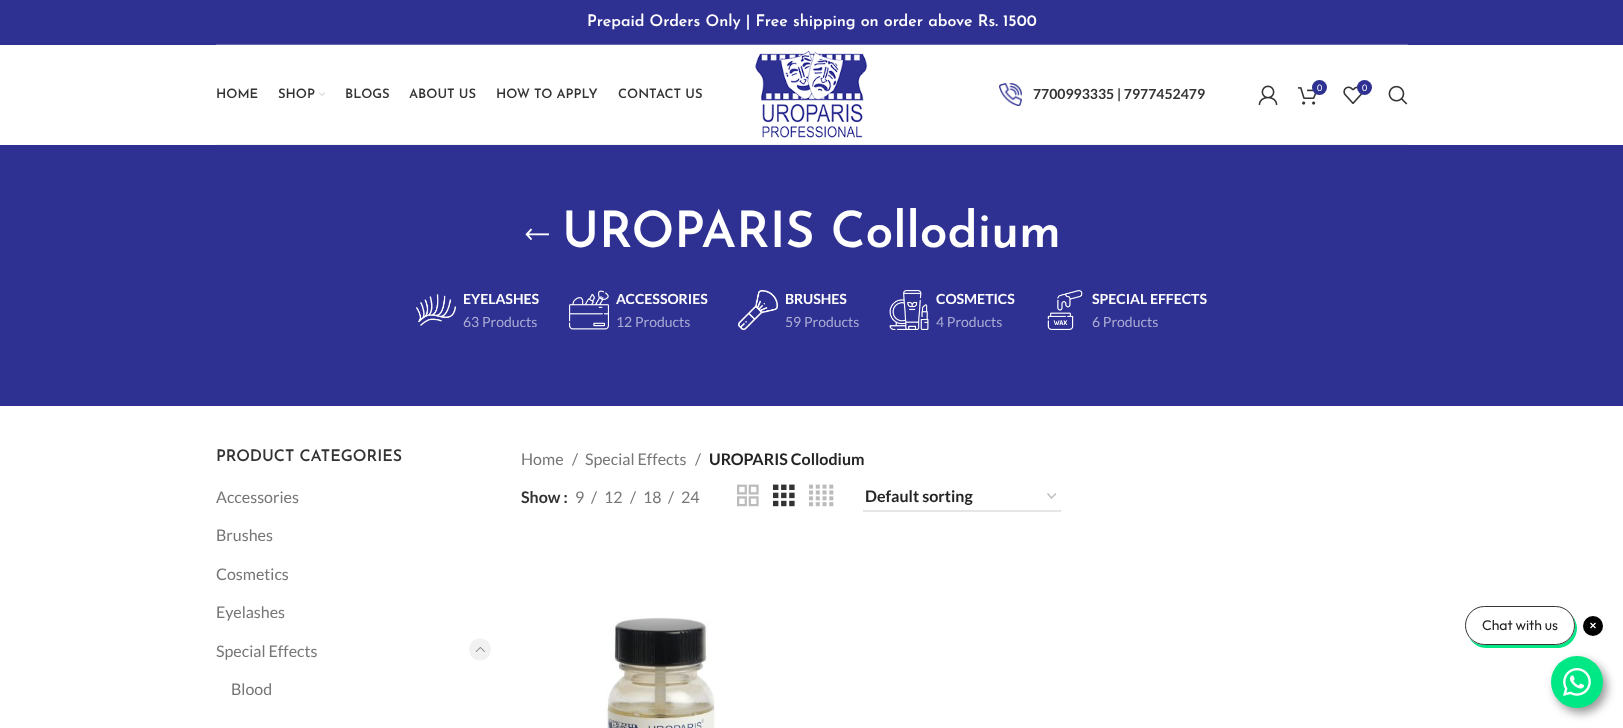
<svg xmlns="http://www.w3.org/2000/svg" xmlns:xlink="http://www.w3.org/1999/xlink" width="1623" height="728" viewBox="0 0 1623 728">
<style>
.cls-1{font:600 16px Josefin Sans;fill:#ffffff}
.cls-2{font:600 13px Josefin Sans;fill:#333333}
.cls-3{font:bold 14px Lato;fill:#333333}
.cls-4{font:9px Lato;fill:#ffffff}
.cls-5{font:600 50px Josefin Sans;fill:#ffffff}
.cls-6{font:bold 14px Lato;fill:#ffffff}
.cls-7{font:14px Lato;fill:#abacd3}
.cls-8{font:600 16px Josefin Sans;fill:#333333}
.cls-9{font:16px Lato;fill:#767676}
.cls-10{font:bold 16px Lato;fill:#242424}
.cls-11{font:bold 16px Lato;fill:#333333}
.cls-12{font:14px Outfit;fill:#242424}
</style>
<rect width="100%" height="100%" fill="#ffffff"/>
<rect fill="#2e3092" x="0" y="0" width="1623" height="45"/>
<rect fill="#6264ad" x="216" y="44" width="1192" height="1"/>
<rect fill="#f3f3f3" x="216" y="144" width="1192" height="1"/>
<image xlink:href="image0.png" x="319" y="92" width="6" height="4"/>
<image xlink:href="image1.png" x="755" y="50" width="113" height="88"/>
<image xlink:href="image2.png" x="999" y="83" width="23" height="23"/>
<image xlink:href="image3.png" x="1258" y="85" width="20" height="20"/>
<image xlink:href="image4.png" x="1298" y="87" width="19" height="18"/>
<circle fill="#2e3092" cx="1319.5" cy="87.5" r="7.5"/>
<image xlink:href="image5.png" x="1343" y="86" width="20" height="18"/>
<circle fill="#2e3092" cx="1364.5" cy="87.5" r="7.5"/>
<image xlink:href="image6.png" x="1388" y="85" width="20" height="20"/>
<rect fill="#2e3092" x="0" y="145" width="1623" height="261"/>
<image xlink:href="image7.png" x="525" y="228" width="24" height="13"/>
<image xlink:href="image8.png" x="416" y="294" width="40" height="32"/>
<image xlink:href="image9.png" x="569" y="290" width="40" height="40"/>
<image xlink:href="image10.png" x="738" y="290" width="40" height="40"/>
<image xlink:href="image11.png" x="889" y="290" width="40" height="40"/>
<image xlink:href="image12.png" x="1047" y="290" width="36" height="40"/>
<path fill="#f1f1f1" d="M480 660.5C465.5 660.5 465.5 638.5 480 638.5C494.5 638.5 494.5 660.5 480 660.5Z"/>
<image xlink:href="image13.png" x="475" y="647" width="10" height="5"/>
<image xlink:href="image14.png" x="737" y="484" width="22" height="23"/>
<image xlink:href="image15.png" x="773" y="484" width="22" height="23"/>
<image xlink:href="image16.png" x="809" y="484" width="25" height="23"/>
<path fill="none" stroke="#bbbbbb" stroke-width="1.4" d="M1047.5 493.5L1051.5 498L1056 493.5"/>
<rect fill="#e6e6e6" x="863" y="510" width="198" height="2"/>
<image xlink:href="image17.png" x="605" y="617" width="110" height="111"/>
<rect fill="#000000" fill-opacity="0.4" filter="blur(5px)" x="1555" y="661" width="52" height="52" rx="26"/>
<path fill="#00e785" d="M1469 638C1473 644 1479 648 1486 648H1558C1568 648 1577 639 1577 628C1577 624 1575 620 1573 616C1574 619 1575 622 1575 626C1575 636 1566 645 1556 645H1484C1478 645 1473 642 1469 638Z"/>
<rect fill="#ffffff" stroke="#363636" x="1465.5" y="606.5" width="109" height="38" rx="19"/>
<circle fill="#000000" cx="1593" cy="626" r="10"/>
<path fill="none" stroke="#ffffff" stroke-width="1.3" d="M1590.5 623L1595.5 628M1590.5 628L1595.5 623"/>
<circle fill="#00e785" cx="1577" cy="682" r="26"/>
<image xlink:href="image18.png" x="1563" y="668" width="28" height="28"/>
<text class="cls-1" x="587" y="26">Prepaid Orders Only | Free shipping on order above Rs. 1500</text>
<text class="cls-2" x="216" y="98">HOME</text>
<text class="cls-2" x="278" y="98">SHOP</text>
<text class="cls-2" x="345" y="98">BLOGS</text>
<text class="cls-2" x="409" y="98">ABOUT US</text>
<text class="cls-2" x="496" y="98">HOW TO APPLY</text>
<text class="cls-2" x="618" y="98">CONTACT US</text>
<text class="cls-3" x="1033" y="99">7700993335 | 7977452479</text>
<text class="cls-4" x="1317" y="91">0</text>
<text class="cls-4" x="1362" y="91">0</text>
<text class="cls-5" x="562" y="247">UROPARIS Collodium</text>
<text class="cls-6" x="463" y="304">EYELASHES</text>
<text class="cls-7" x="463" y="327">63 Products</text>
<text class="cls-6" x="616" y="304">ACCESSORIES</text>
<text class="cls-7" x="616" y="327">12 Products</text>
<text class="cls-6" x="785" y="304">BRUSHES</text>
<text class="cls-7" x="785" y="327">59 Products</text>
<text class="cls-6" x="936" y="304">COSMETICS</text>
<text class="cls-7" x="936" y="327">4 Products</text>
<text class="cls-6" x="1092" y="304">SPECIAL EFFECTS</text>
<text class="cls-7" x="1092" y="327">6 Products</text>
<text class="cls-8" x="216" y="461">PRODUCT CATEGORIES</text>
<text class="cls-9" x="216" y="503">Accessories</text>
<text class="cls-9" x="216" y="541">Brushes</text>
<text class="cls-9" x="216" y="580">Cosmetics</text>
<text class="cls-9" x="216" y="618">Eyelashes</text>
<text class="cls-9" x="216" y="657">Special Effects</text>
<text class="cls-9" x="231" y="695">Blood</text>
<text class="cls-9" x="521" y="465">Home</text>
<text class="cls-9" x="572" y="465">/</text>
<text class="cls-9" x="585" y="465">Special Effects</text>
<text class="cls-9" x="695" y="465">/</text>
<text class="cls-10" x="709" y="465">UROPARIS Collodium</text>
<text class="cls-11" x="521" y="503">Show :</text>
<text class="cls-9" x="575" y="503">9</text>
<text class="cls-9" x="591" y="503">/</text>
<text class="cls-9" x="604" y="503">12</text>
<text class="cls-9" x="630" y="503">/</text>
<text class="cls-9" x="643" y="503">18</text>
<text class="cls-9" x="668" y="503">/</text>
<text class="cls-9" x="681" y="503">24</text>
<text class="cls-10" x="865" y="502">Default sorting</text>
<text class="cls-12" x="1482" y="630">Chat with us</text>
</svg>
